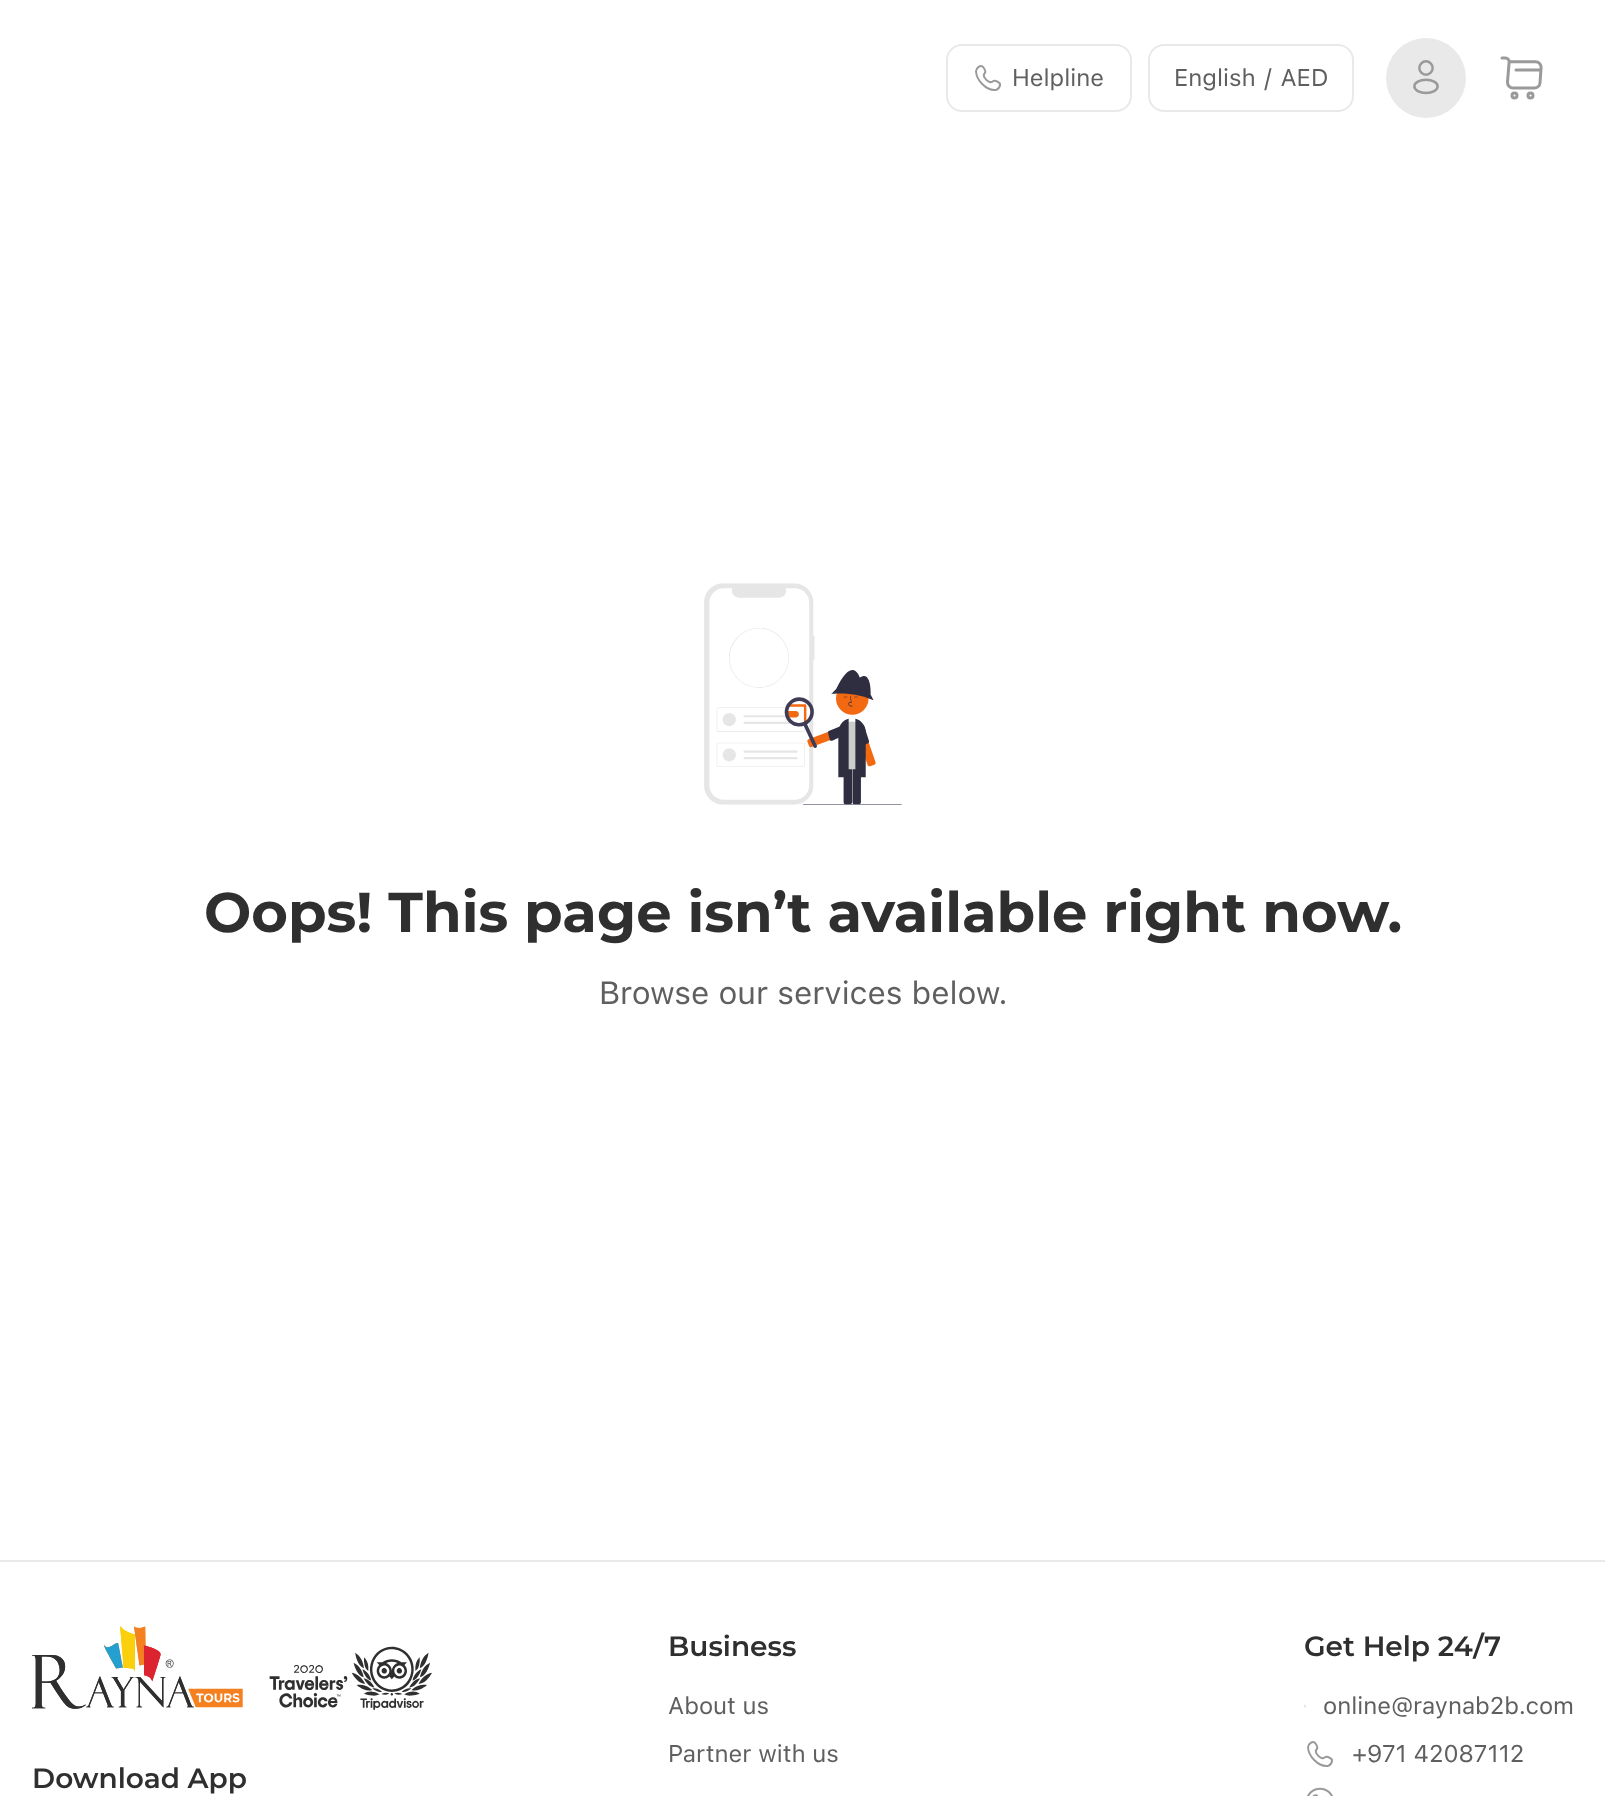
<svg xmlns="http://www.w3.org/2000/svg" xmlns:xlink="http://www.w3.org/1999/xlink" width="1605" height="1796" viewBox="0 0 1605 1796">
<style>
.cls-1{font:24px SF;fill:#5f5f5f}
.cls-2{font:bold 56px Montserrat;fill:#2f2f2f}
.cls-3{font:32px SF;fill:#5f5f5f}
.cls-4{font:600 28px Montserrat;fill:#2f2f2f}
</style>
<rect width="100%" height="100%" fill="#ffffff"/>
<rect fill="none" stroke="#eae9e9" stroke-width="2" x="947" y="45" width="184" height="66" rx="15"/>
<image xlink:href="image0.png" x="975" y="65" width="26" height="26"/>
<rect fill="none" stroke="#eae9e9" stroke-width="2" x="1149" y="45" width="204" height="66" rx="15"/>
<circle fill="#eae9e9" cx="1426" cy="78" r="40"/>
<image xlink:href="image1.png" x="1413" y="60" width="26" height="35"/>
<image xlink:href="image2.png" x="1500" y="56" width="43" height="44"/>
<image xlink:href="image3.png" x="704" y="583" width="198" height="222"/>
<rect fill="#eae9e9" x="0" y="1560" width="1605" height="2"/>
<image xlink:href="image4.png" x="1304" y="1704" width="2" height="4"/>
<image xlink:href="image0.png" x="1307" y="1741" width="26" height="26"/>
<image xlink:href="image5.png" x="1307" y="1787" width="26" height="9"/>
<image xlink:href="image6.png" x="32" y="1626" width="400" height="84"/>
<text class="cls-1" x="1012" y="86">Helpline</text>
<text class="cls-1" x="1174" y="86" word-spacing="2">English / AED</text>
<text class="cls-2" x="204" y="932">Oops! This page isn’t available right now.</text>
<text class="cls-3" x="599" y="1004">Browse our services below.</text>
<text class="cls-4" x="668" y="1656">Business</text>
<text class="cls-1" x="668" y="1714">About us</text>
<text class="cls-1" x="668" y="1762">Partner with us</text>
<text class="cls-4" x="1304" y="1656">Get Help 24/7</text>
<text class="cls-1" x="1323" y="1714">online@raynab2b.com</text>
<text class="cls-1" x="1352" y="1762">+971 42087112</text>
<text class="cls-4" x="32" y="1788">Download App</text>
</svg>
